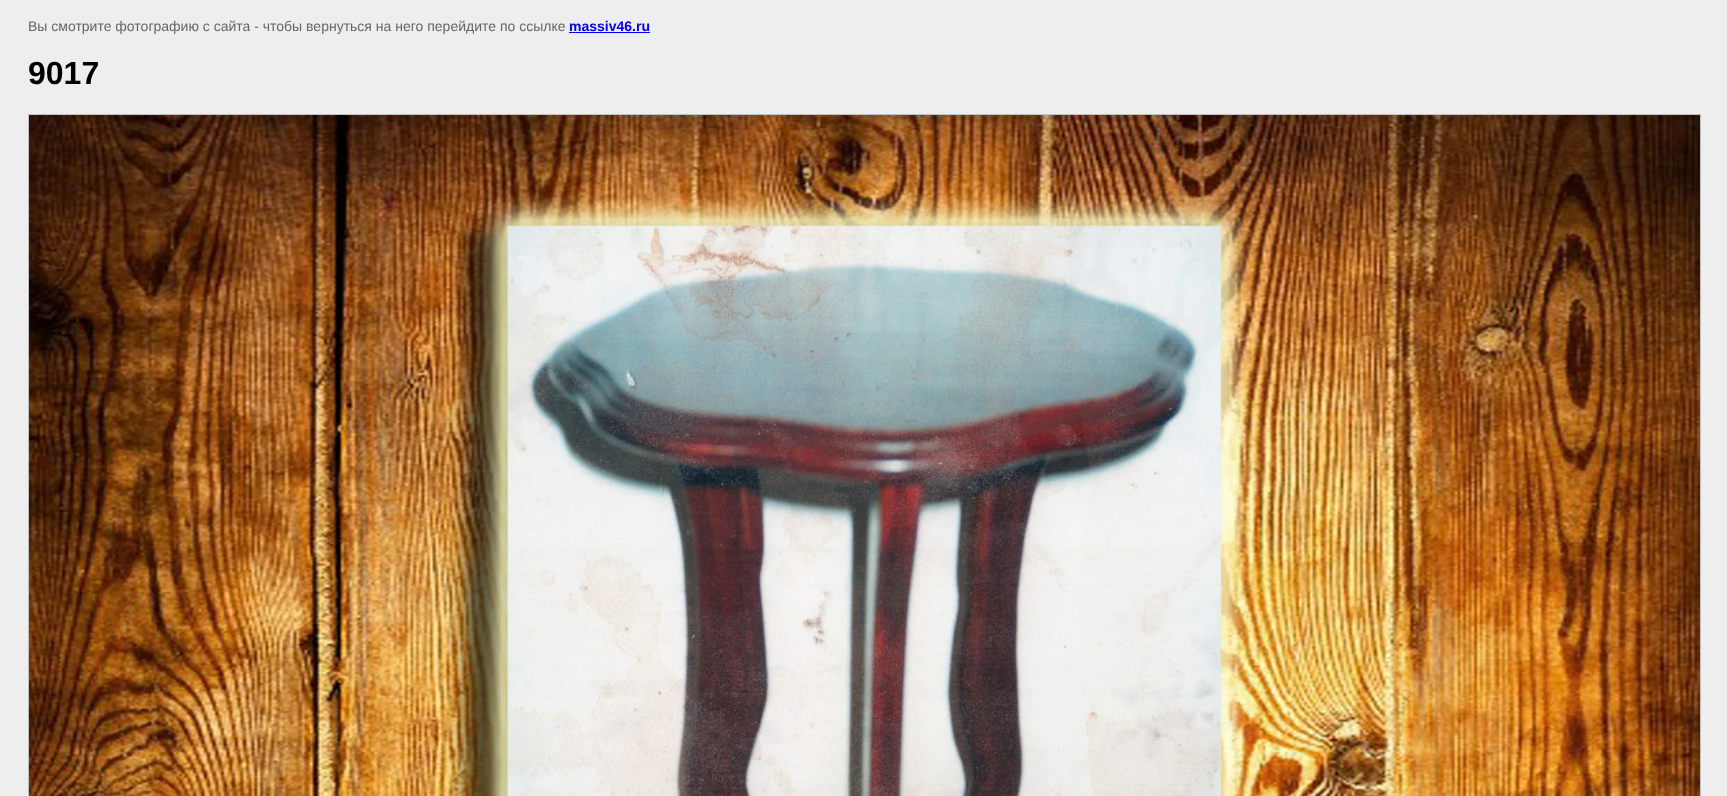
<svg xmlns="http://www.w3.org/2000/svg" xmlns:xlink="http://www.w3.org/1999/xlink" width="1727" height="796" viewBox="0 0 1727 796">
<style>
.cls-1{font:14px Liberation Sans;fill:#666666}
.cls-2{font:bold 14px Liberation Sans;fill:#0000ee}
.cls-3{font:bold 32px Liberation Sans;fill:#000000}
</style>
<rect width="100%" height="100%" fill="#eeeeee"/>
<rect fill="#0000ee" x="569" y="32" width="81" height="1"/>
<rect fill="none" stroke="#c0c0c0" x="28.5" y="114.5" width="1672" height="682"/>
<image xlink:href="image0.png" x="29" y="115" width="1671" height="681"/>
<text class="cls-1" x="28" y="31">Вы смотрите фотографию с сайта - чтобы вернуться на него перейдите по ссылке</text>
<text class="cls-2" x="569" y="31">massiv46.ru</text>
<text class="cls-3" x="28" y="84">9017</text>
</svg>
